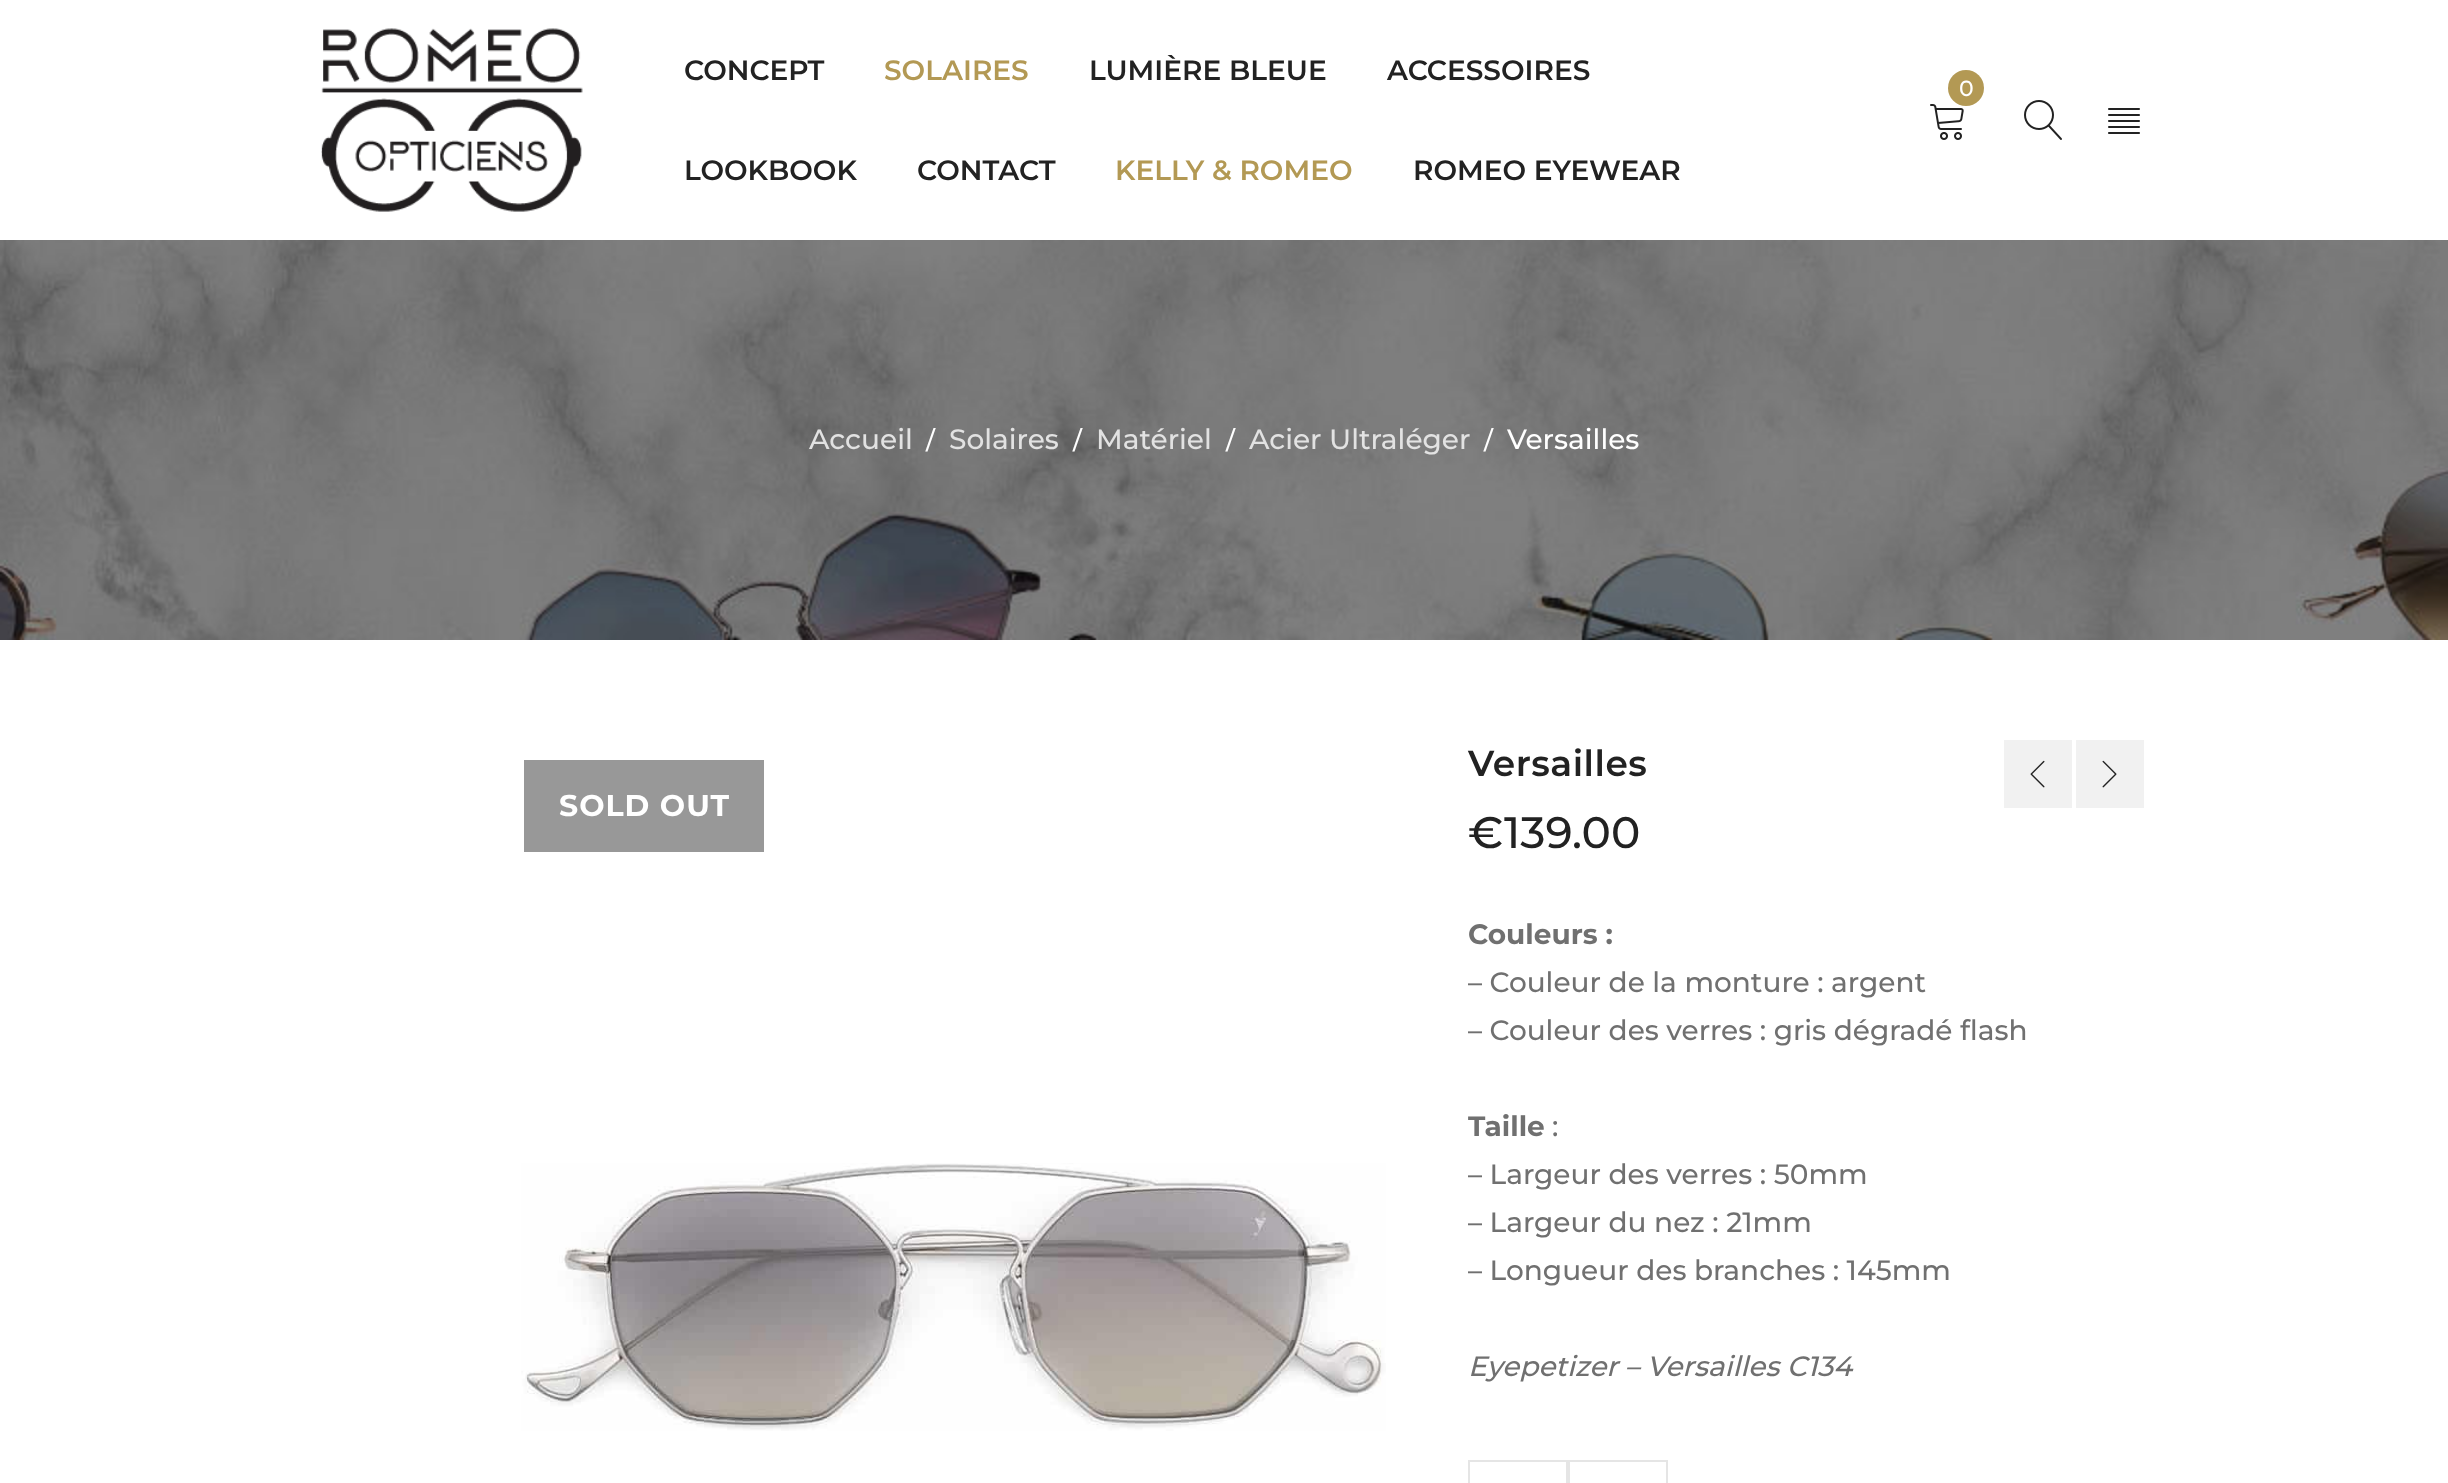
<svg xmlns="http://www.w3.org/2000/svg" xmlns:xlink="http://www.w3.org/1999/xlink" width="2448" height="1483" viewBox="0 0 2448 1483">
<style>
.cls-1{font:600 28px Montserrat;fill:#222222}
.cls-2{font:600 28px Montserrat;fill:#b39954}
.cls-3{font:500 22px Montserrat;fill:#ffffff}
.cls-4{font:500 28px Montserrat;fill:#e2e2e2}
.cls-5{font:500 25px Montserrat;fill:#ffffff}
.cls-6{font:500 28px Montserrat;fill:#ffffff}
.cls-7{font:bold 30px Montserrat;letter-spacing:1px;fill:#ffffff}
.cls-8{font:600 36px Montserrat;letter-spacing:0.5px;fill:#222222}
.cls-9{font:500 44px Montserrat;fill:#222222}
.cls-10{font:bold 28px Montserrat;fill:#707070}
.cls-11{font:500 28px Montserrat;fill:#707070}
.cls-12{font:italic 500 28px Montserrat;fill:#707070}
</style>
<rect width="100%" height="100%" fill="#ffffff"/>
<image xlink:href="image0.png" x="321" y="28" width="262" height="184"/>
<image xlink:href="image1.png" x="1930" y="104" width="34" height="36"/>
<circle fill="#b39954" cx="1966" cy="88" r="18"/>
<image xlink:href="image2.png" x="2024" y="100" width="38" height="40"/>
<image xlink:href="image3.png" x="2108" y="108" width="32" height="26"/>
<image xlink:href="image4.png" x="0" y="240" width="2448" height="400"/>
<rect fill="#989898" x="524" y="760" width="240" height="92"/>
<image xlink:href="image5.png" x="521" y="1163" width="865" height="268"/>
<rect fill="#f1f1f1" x="2004" y="740" width="68" height="68"/>
<image xlink:href="image6.png" x="2030" y="760" width="15" height="28"/>
<rect fill="#f1f1f1" x="2076" y="740" width="68" height="68"/>
<image xlink:href="image7.png" x="2102" y="760" width="15" height="28"/>
<rect fill="none" stroke="#e5e5e5" stroke-width="2" x="1469" y="1461" width="98" height="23"/>
<rect fill="none" stroke="#e5e5e5" stroke-width="2" x="1569" y="1461" width="98" height="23"/>
<text class="cls-1" x="684" y="80">CONCEPT</text>
<text class="cls-2" x="884" y="80">SOLAIRES</text>
<text class="cls-1" x="1089" y="80">LUMIÈRE BLEUE</text>
<text class="cls-1" x="1387" y="80">ACCESSOIRES</text>
<text class="cls-1" x="684" y="180">LOOKBOOK</text>
<text class="cls-1" x="917" y="180">CONTACT</text>
<text class="cls-2" x="1115" y="180">KELLY &amp; ROMEO</text>
<text class="cls-1" x="1413" y="180">ROMEO EYEWEAR</text>
<text class="cls-3" x="1959" y="96">0</text>
<text class="cls-4" x="809" y="449">Accueil</text>
<text class="cls-5" x="926" y="449">/</text>
<text class="cls-4" x="949" y="449">Solaires</text>
<text class="cls-5" x="1073" y="449">/</text>
<text class="cls-4" x="1096" y="449">Matériel</text>
<text class="cls-5" x="1226" y="449">/</text>
<text class="cls-4" x="1249" y="449">Acier Ultraléger</text>
<text class="cls-5" x="1484" y="449">/</text>
<text class="cls-6" x="1507" y="449">Versailles</text>
<text class="cls-7" x="559" y="816">SOLD OUT</text>
<text class="cls-8" x="1468" y="776">Versailles</text>
<text class="cls-9" x="1468" y="848">€</text>
<text class="cls-9" x="1504" y="848">139.00</text>
<text class="cls-10" x="1468" y="944">Couleurs :</text>
<text class="cls-11"><tspan x="1468" y="992">– Couleur de la monture : argent</tspan><tspan x="1468" y="1040">– Couleur des verres : gris dégradé flash</tspan></text>
<text class="cls-10" x="1468" y="1136">Taille</text>
<text class="cls-11" x="1552" y="1136">:</text>
<text class="cls-11"><tspan x="1468" y="1184">– Largeur des verres : 50mm</tspan><tspan x="1468" y="1232">– Largeur du nez : 21mm</tspan><tspan x="1468" y="1280">– Longueur des branches : 145mm</tspan></text>
<text class="cls-12" x="1468" y="1376">Eyepetizer – Versailles C134</text>
</svg>
